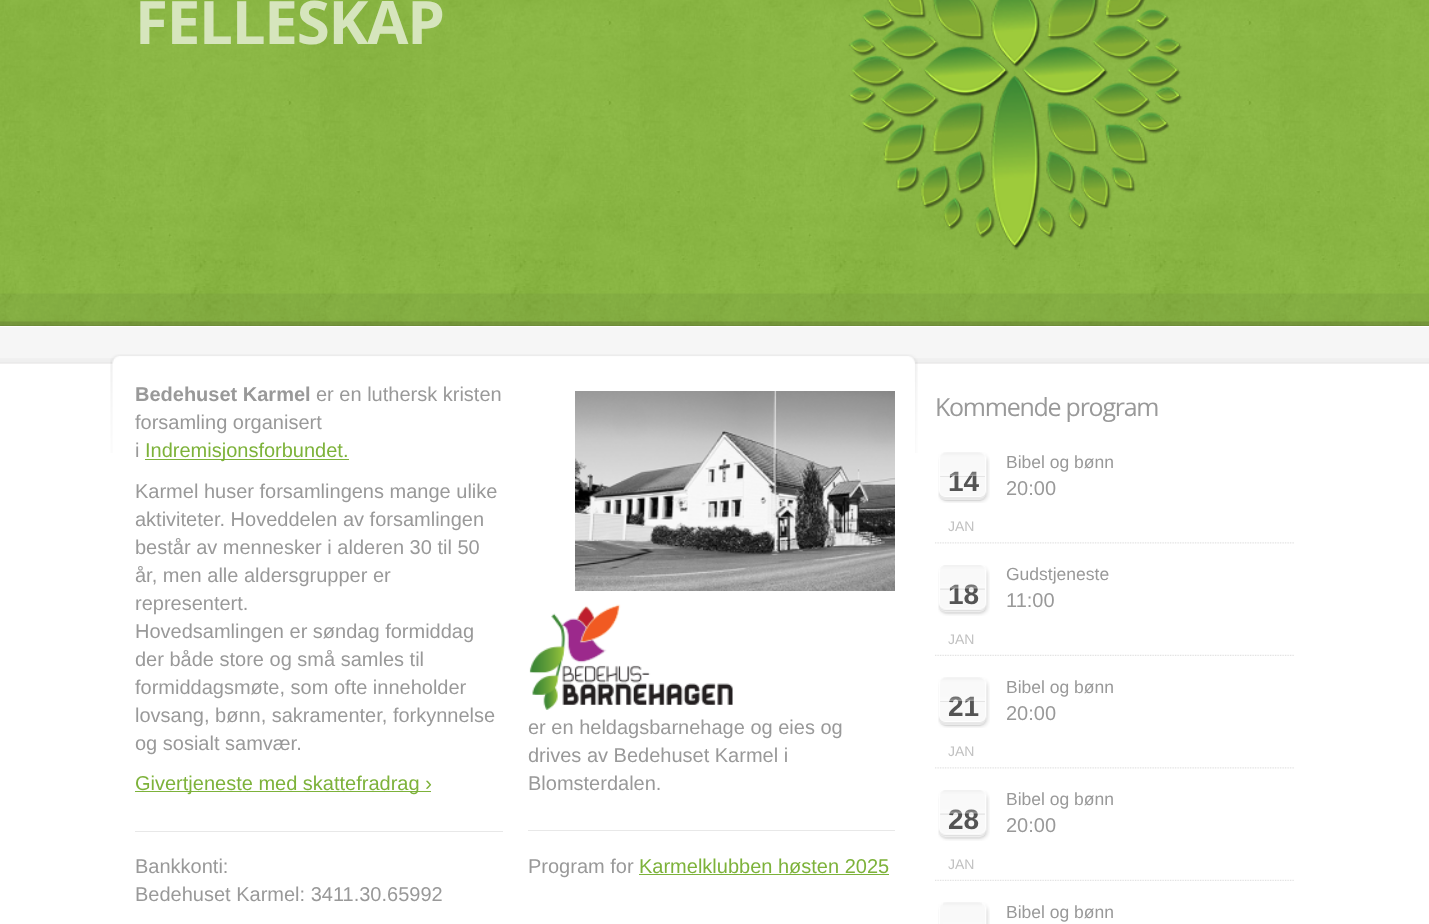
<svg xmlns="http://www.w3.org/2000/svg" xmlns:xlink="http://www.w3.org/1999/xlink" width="1429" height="924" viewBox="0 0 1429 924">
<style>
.cls-1{font:bold 60px Open Sans;letter-spacing:-1.25px;fill:#d6e5bd}
.cls-2{font:bold 20px Liberation Sans;fill:#999999}
.cls-3{font:20px Liberation Sans;fill:#999999}
.cls-4{font:20px Liberation Sans;fill:#7db23a}
.cls-5{font:25px Open Sans;letter-spacing:-1.25px;fill:#999999}
.cls-6{font:17.5px Liberation Sans;fill:#999999}
.cls-7{font:bold 28px Liberation Sans;fill:#545454}
.cls-8{font:14px Liberation Sans;fill:#c1c1c1}
</style>
<rect width="100%" height="100%" fill="#ffffff"/>
<rect fill="#8bbc3c" x="0" y="0" width="1429" height="326"/>
<image xlink:href="image0.png" x="0" y="0" width="1429" height="326"/>
<image xlink:href="image1.png" x="848" y="0" width="335" height="250"/>
<image xlink:href="image2.png" x="0" y="293" width="1429" height="33"/>
<rect fill="#f6f6f6" x="0" y="327" width="1429" height="37"/>
<image xlink:href="image3.png" x="0" y="358" width="1429" height="6"/>
<image xlink:href="image4.png" x="110" y="354" width="808" height="99"/>
<rect fill="#7db23a" x="145" y="459" width="204" height="1"/>
<rect fill="#7db23a" x="135" y="791" width="296" height="1"/>
<rect fill="#e8e8e8" x="135" y="831" width="368" height="1"/>
<image xlink:href="image5.png" x="575" y="391" width="320" height="200"/>
<image xlink:href="image6.png" x="529" y="604" width="204" height="106"/>
<rect fill="#e8e8e8" x="528" y="830" width="367" height="1"/>
<rect fill="#7db23a" x="639" y="874" width="250" height="1"/>
<image xlink:href="image7.png" x="935" y="542" width="359" height="2"/>
<image xlink:href="image8.png" x="938" y="452" width="52" height="51"/>
<image xlink:href="image10.png" x="935" y="654" width="359" height="2"/>
<image xlink:href="image11.png" x="938" y="565" width="52" height="51"/>
<image xlink:href="image7.png" x="935" y="767" width="359" height="2"/>
<image xlink:href="image8.png" x="938" y="677" width="52" height="51"/>
<image xlink:href="image10.png" x="935" y="879" width="359" height="2"/>
<image xlink:href="image11.png" x="938" y="790" width="52" height="51"/>
<image xlink:href="image15.png" x="938" y="902" width="52" height="22"/>
<image xlink:href="image16.png" x="943" y="902" width="39" height="22"/>
<text class="cls-1" x="135" y="44">FELLESKAP</text>
<text class="cls-2" x="135" y="401">Bedehuset Karmel</text>
<text class="cls-3" x="316" y="401">er en luthersk kristen</text>
<text class="cls-3"><tspan x="135" y="429">forsamling organisert</tspan><tspan x="135" y="457">i</tspan></text>
<text class="cls-4" x="145" y="457">Indremisjonsforbundet.</text>
<text class="cls-3"><tspan x="135" y="498">Karmel huser forsamlingens mange ulike</tspan><tspan x="135" y="526">aktiviteter. Hoveddelen av forsamlingen</tspan><tspan x="135" y="554">består av mennesker i alderen 30 til 50</tspan><tspan x="135" y="582">år, men alle aldersgrupper er</tspan><tspan x="135" y="610">representert.</tspan><tspan x="135" y="638">Hovedsamlingen er søndag formiddag</tspan><tspan x="135" y="666">der både store og små samles til</tspan><tspan x="135" y="694">formiddagsmøte, som ofte inneholder</tspan><tspan x="135" y="722">lovsang, bønn, sakramenter, forkynnelse</tspan><tspan x="135" y="750">og sosialt samvær.</tspan></text>
<text class="cls-4" x="135" y="790">Givertjeneste med skattefradrag ›</text>
<text class="cls-3"><tspan x="135" y="873">Bankkonti:</tspan><tspan x="135" y="901">Bedehuset Karmel: 3411.30.65992</tspan></text>
<text class="cls-3"><tspan x="528" y="734">er en heldagsbarnehage og eies og</tspan><tspan x="528" y="762">drives av Bedehuset Karmel i</tspan><tspan x="528" y="790">Blomsterdalen.</tspan></text>
<text class="cls-3" x="528" y="873">Program for</text>
<text class="cls-4" x="639" y="873">Karmelklubben høsten 2025</text>
<text class="cls-5" x="935" y="416">Kommende program</text>
<text class="cls-6" x="1006" y="468">Bibel og bønn</text>
<text class="cls-7" x="948" y="491">14</text>
<image xlink:href="image9.png" x="940" y="452" width="45" height="25"/>
<text class="cls-8" x="948" y="531">JAN</text>
<text class="cls-3" x="1006" y="495">20:00</text>
<text class="cls-6" x="1006" y="580">Gudstjeneste</text>
<text class="cls-7" x="948" y="604">18</text>
<image xlink:href="image12.png" x="940" y="565" width="45" height="25"/>
<text class="cls-8" x="948" y="644">JAN</text>
<text class="cls-3" x="1006" y="607">11:00</text>
<text class="cls-6" x="1006" y="693">Bibel og bønn</text>
<text class="cls-7" x="948" y="716">21</text>
<image xlink:href="image13.png" x="940" y="677" width="45" height="25"/>
<text class="cls-8" x="948" y="756">JAN</text>
<text class="cls-3" x="1006" y="720">20:00</text>
<text class="cls-6" x="1006" y="805">Bibel og bønn</text>
<text class="cls-7" x="948" y="829">28</text>
<image xlink:href="image14.png" x="940" y="790" width="45" height="25"/>
<text class="cls-8" x="948" y="869">JAN</text>
<text class="cls-3" x="1006" y="832">20:00</text>
<text class="cls-6" x="1006" y="918">Bibel og bønn</text>
</svg>
